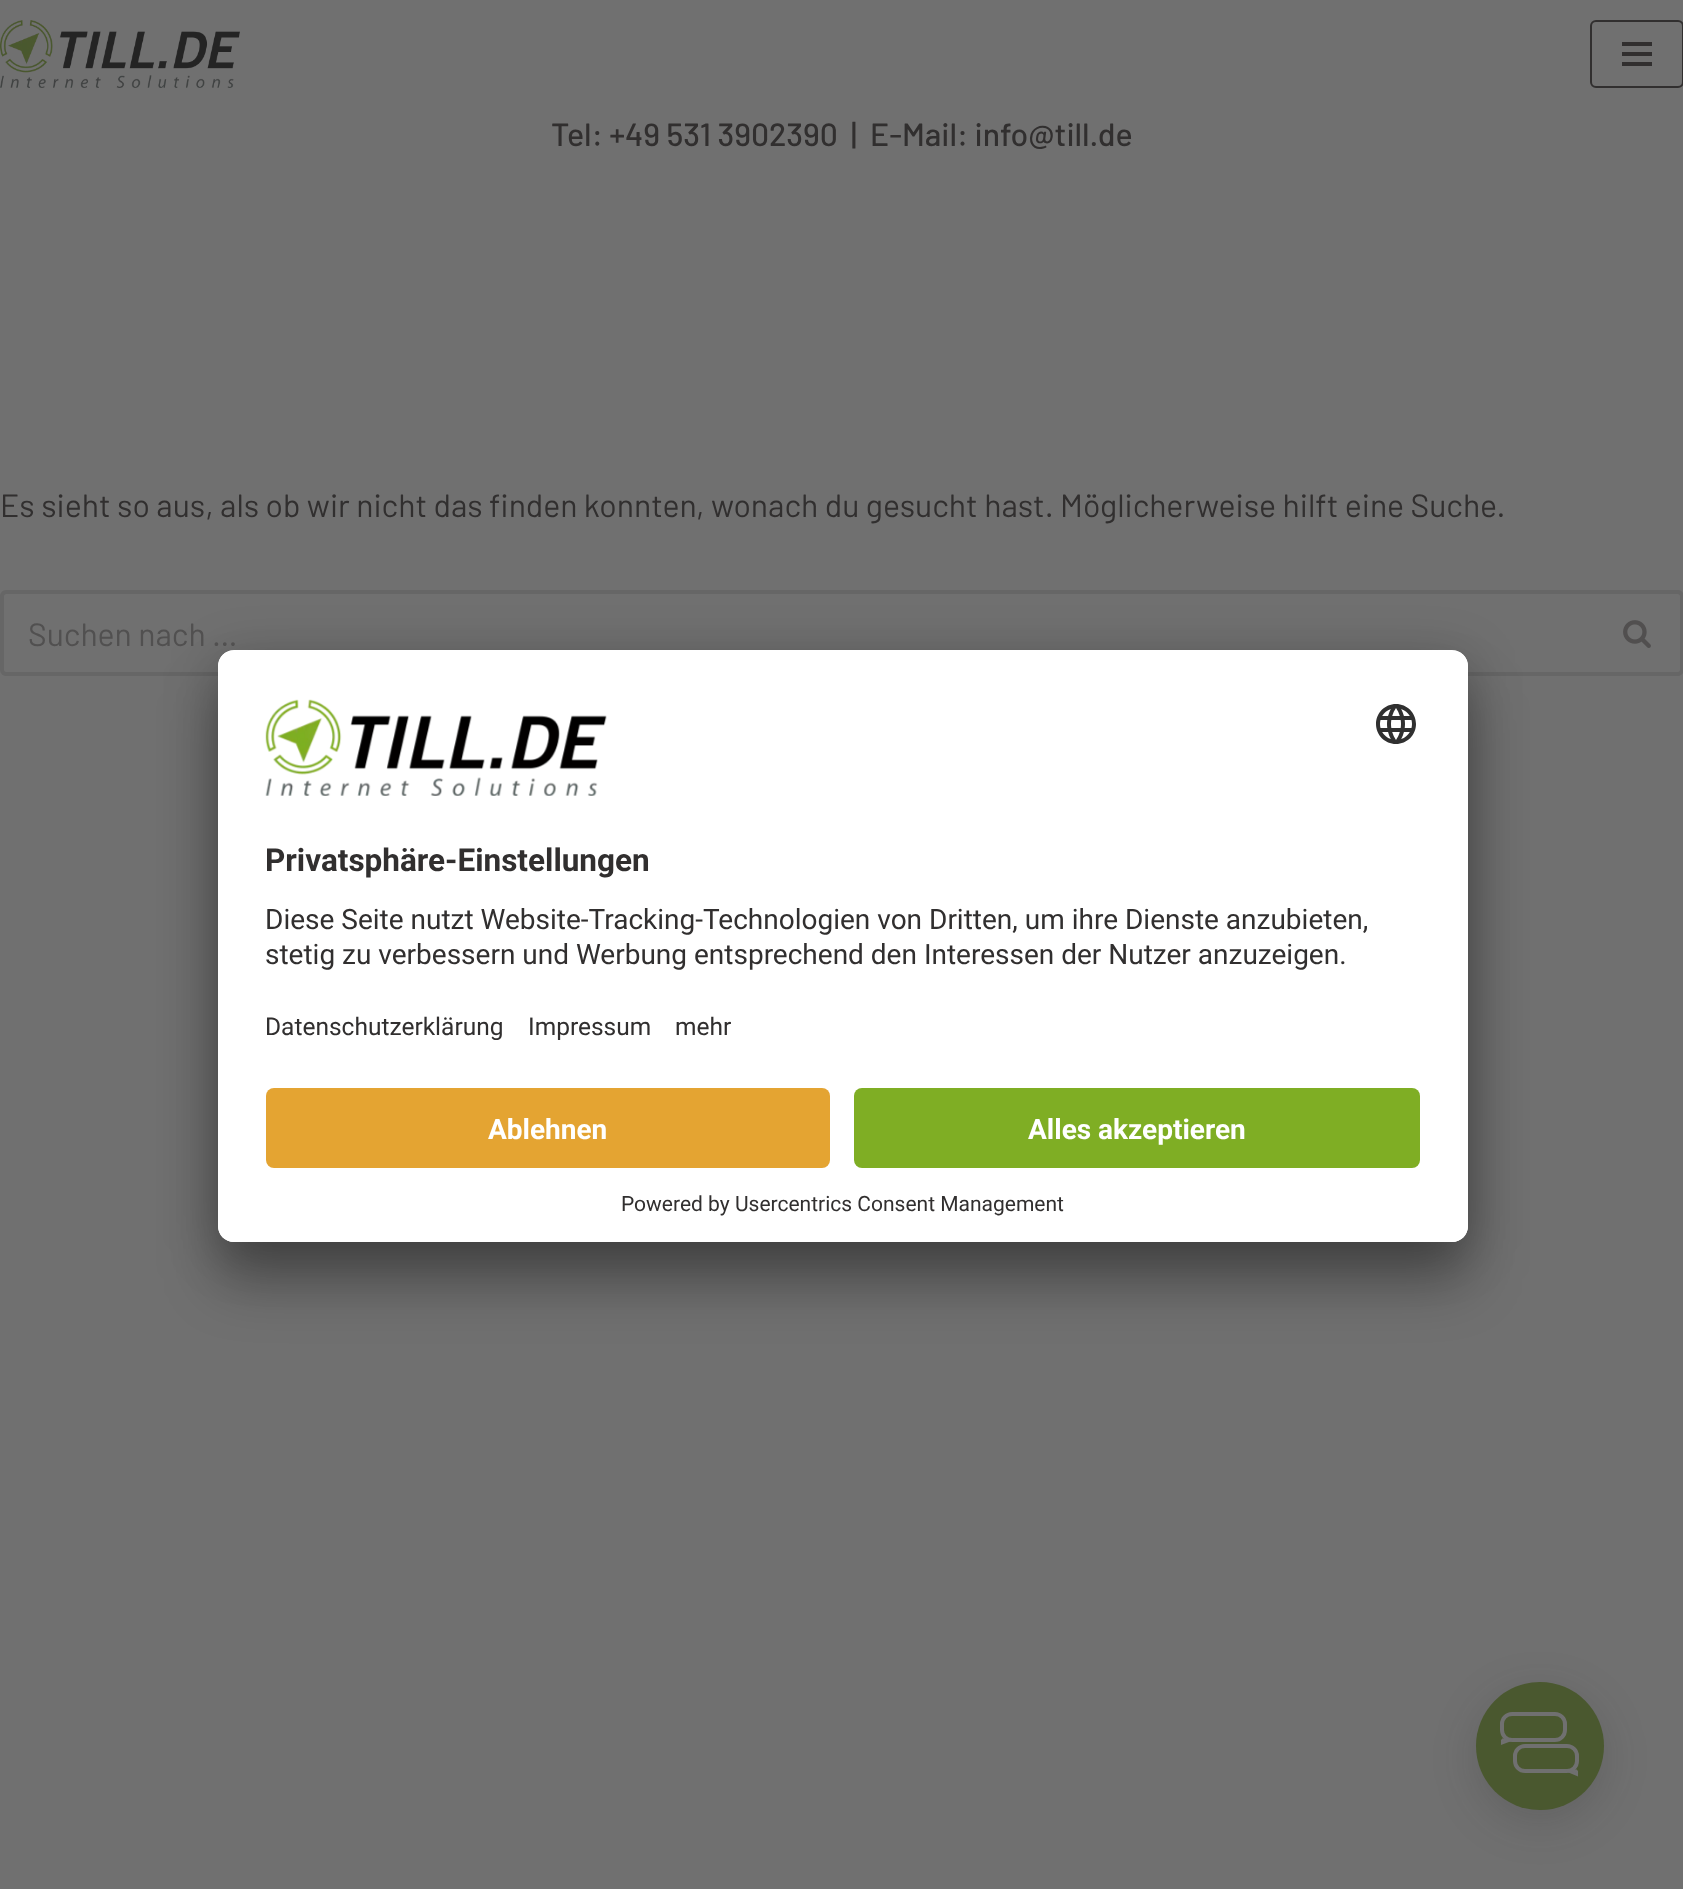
<svg xmlns="http://www.w3.org/2000/svg" xmlns:xlink="http://www.w3.org/1999/xlink" width="1683" height="1889" viewBox="0 0 1683 1889">
<style>
.cls-1{font:500 32px Barlow;fill:#312f2f}
.cls-2{font:32px Barlow;fill:#312f2f}
.cls-3{font:32px Barlow;fill:#515050}
.cls-4{font:bold 31.5px Roboto;fill:#312f2f}
.cls-5{font:28px Roboto;fill:#312f2f}
.cls-6{font:24.5px Roboto;fill:#312f2f}
.cls-7{font:bold 28px Roboto;fill:#ffffff}
.cls-8{font:21px Roboto;fill:#312f2f}
</style>
<defs>
<clipPath id="clip1"><rect x="218" y="650" width="1250" height="592" rx="16"/></clipPath>
<clipPath id="clip2"><path d="M234 650H1452C1461 650 1468 657 1468 666V1072H218V666C218 657 225 650 234 650Z"/></clipPath>
</defs>
<rect width="100%" height="100%" fill="#707070"/>
<image xlink:href="image0.png" x="0" y="20" width="240" height="68"/>
<rect fill="none" stroke="#312f2f" stroke-width="2" x="1591" y="21" width="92" height="66" rx="5"/>
<rect fill="#312f2f" x="1622" y="42" width="30" height="4"/>
<rect fill="#312f2f" x="1622" y="52" width="30" height="4"/>
<rect fill="#312f2f" x="1622" y="62" width="30" height="4"/>
<path fill="#666666" fill-rule="evenodd" d="M6 590H1594V676H6C3 676 0 673 0 670V596C0 593 3 590 6 590ZM6 594H1594V672H6C5 672 4 671 4 670V596C4 595 5 594 6 594Z"/>
<path fill="#666666" fill-rule="evenodd" d="M1594 590H1678C1681 590 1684 593 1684 596V670C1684 673 1681 676 1678 676H1594ZM1594 594H1678C1679 594 1680 595 1680 596V670C1680 671 1679 672 1678 672H1594Z"/>
<image xlink:href="image1.png" x="1623" y="620" width="28" height="28"/>
<rect fill="#000000" fill-opacity="0.3" filter="blur(28px)" x="218" y="690" width="1250" height="592" rx="16"/>
<rect fill="#000000" fill-opacity="0.22" filter="blur(26px)" x="218" y="660" width="1250" height="592" rx="16"/>
<rect fill="#ffffff" x="218" y="650" width="1250" height="592" rx="16"/>
<g clip-path="url(#clip1)">
<g clip-path="url(#clip2)">
<rect fill="#ffffff" x="218" y="652" width="1250" height="420"/>
</g>
</g>
<image xlink:href="image2.png" x="265" y="699" width="342" height="97"/>
<image xlink:href="image3.png" x="1376" y="704" width="40" height="40"/>
<path fill="#ffffff" d="M218 1072H1468V1226C1468 1235 1461 1242 1452 1242H234C225 1242 218 1235 218 1226Z"/>
<rect fill="#e4a432" x="266" y="1088" width="564" height="80" rx="8"/>
<rect fill="#7fae24" x="854" y="1088" width="566" height="80" rx="8"/>
<rect fill="#242424" fill-opacity="0.18" filter="blur(22px)" x="1476" y="1694" width="128" height="128" rx="64"/>
<circle fill="#4a582f" cx="1540" cy="1746" r="64"/>
<rect fill="none" stroke="#707070" stroke-width="4" x="1502" y="1714" width="63" height="26" rx="10"/>
<path fill="#707070" stroke="#707070" stroke-width="2.1" d="M1502 1739.5V1743.5L1512.5 1739.5H1502"/>
<rect fill="none" stroke="#707070" stroke-width="4" x="1515" y="1746" width="62" height="25" rx="10"/>
<path fill="#707070" stroke="#707070" stroke-width="2.1" d="M1577 1770.5V1775L1566.5 1770.5H1577"/>
<text class="cls-1" x="551" y="146">Tel: +49 531 3902390</text>
<text class="cls-1" x="851" y="146">|</text>
<text class="cls-1" x="870" y="146">E-Mail: info@till.de</text>
<text class="cls-2" x="0" y="517">Es sieht so aus, als ob wir nicht das finden konnten, wonach du gesucht hast. Möglicherweise hilft eine Suche.</text>
<text class="cls-3" x="28" y="646">Suchen nach …</text>
<text class="cls-4" x="265" y="871">Privatsphäre-Einstellungen</text>
<text class="cls-5"><tspan x="265" y="929">Diese Seite nutzt Website-Tracking-Technologien von Dritten, um ihre Dienste anzubieten,</tspan><tspan x="265" y="964">stetig zu verbessern und Werbung entsprechend den Interessen der Nutzer anzuzeigen.</tspan></text>
<text class="cls-6" x="265" y="1035">Datenschutzerklärung</text>
<text class="cls-6" x="528" y="1035">Impressum</text>
<text class="cls-6" x="675" y="1035">mehr</text>
<text class="cls-7" x="488" y="1139">Ablehnen</text>
<text class="cls-7" x="1028" y="1139">Alles akzeptieren</text>
<text class="cls-8" x="621" y="1211">Powered by Usercentrics Consent Management</text>
</svg>
